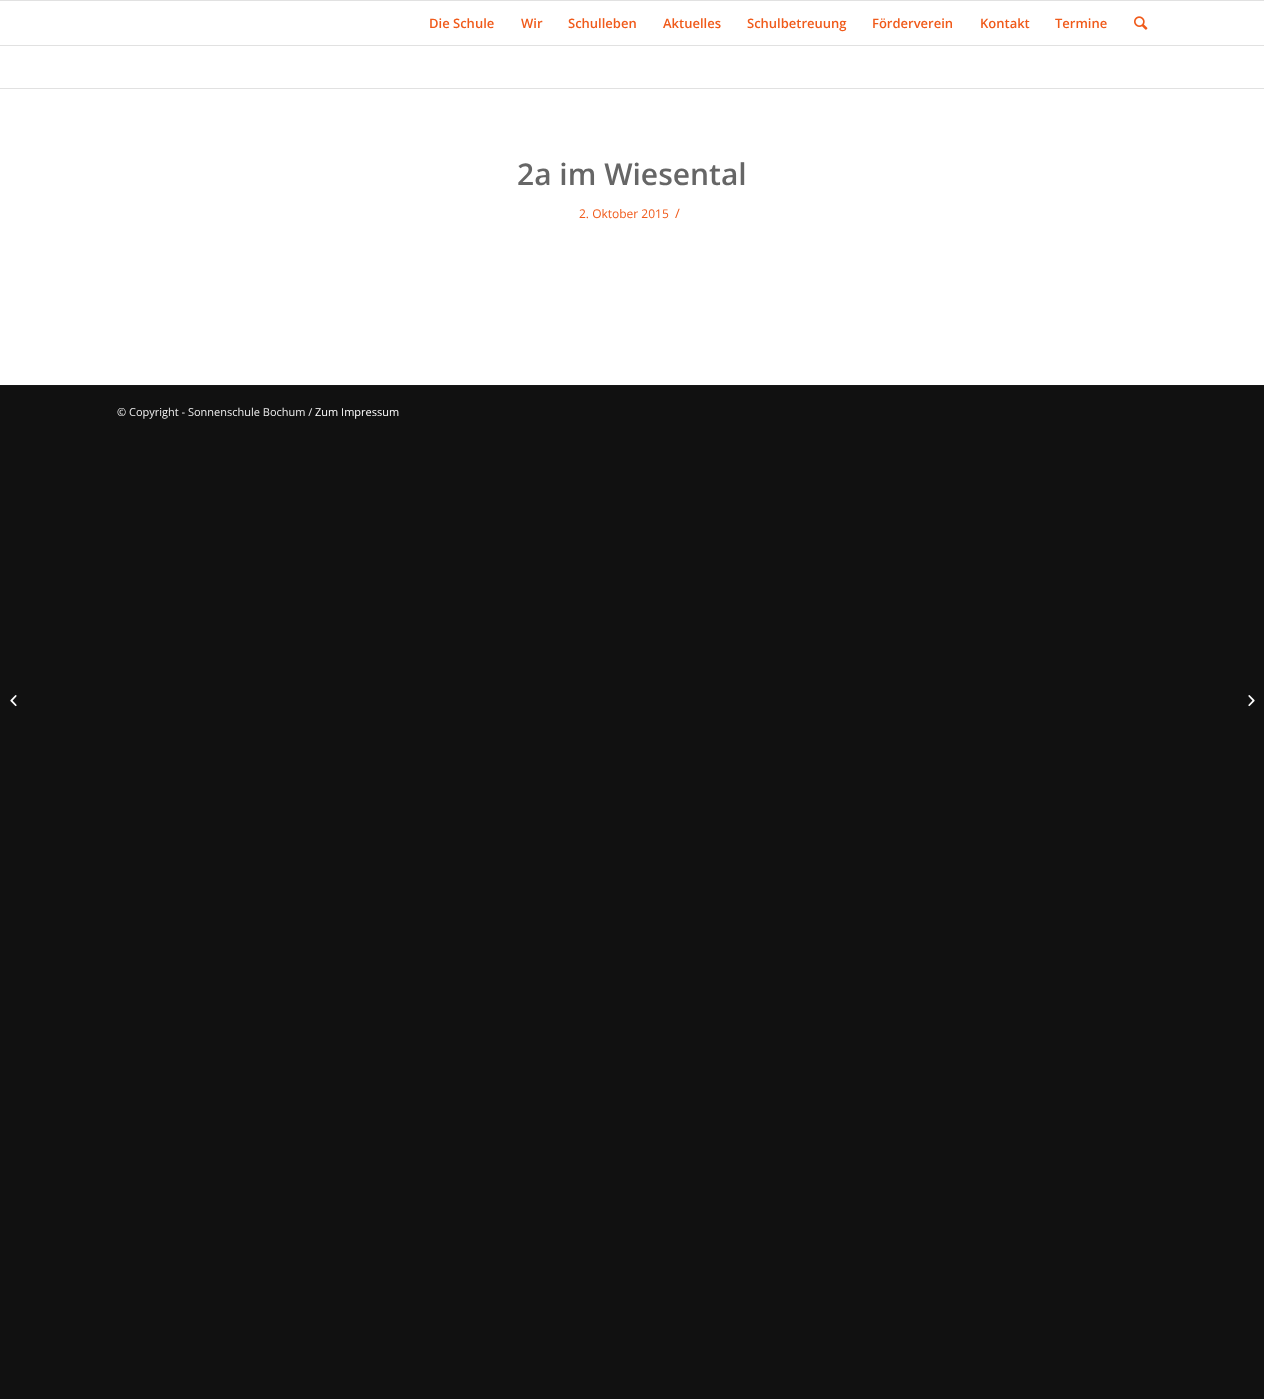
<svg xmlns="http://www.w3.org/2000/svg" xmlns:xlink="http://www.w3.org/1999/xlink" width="1264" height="1399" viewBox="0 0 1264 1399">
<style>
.cls-1{font:600 13px Open Sans;fill:#f05a1a}
.cls-2{font:600 30px Open Sans;fill:#666666}
.cls-3{font:12px Open Sans;fill:#f05a1a}
.cls-4{font:13px Open Sans;fill:#f05a1a}
.cls-5{font:11px Open Sans;fill:#eeeeee}
.cls-6{font:11px Open Sans;fill:#ffffff}
</style>
<rect width="100%" height="100%" fill="#111111"/>
<rect fill="#e1e1e1" x="0" y="0" width="1264" height="1"/>
<rect fill="#ffffff" x="0" y="1" width="1264" height="384"/>
<rect fill="#e1e1e1" x="0" y="45" width="1264" height="1"/>
<image xlink:href="image0.png" x="1134" y="16" width="14" height="14"/>
<rect fill="#e1e1e1" x="0" y="88" width="1264" height="1"/>
<rect fill="#161616" x="0" y="385" width="1264" height="1"/>
<image xlink:href="image1.png" x="10" y="695" width="7" height="12"/>
<image xlink:href="image2.png" x="1248" y="695" width="7" height="12"/>
<text class="cls-1" x="429" y="28">Die Schule</text>
<text class="cls-1" x="521" y="28">Wir</text>
<text class="cls-1" x="568" y="28">Schulleben</text>
<text class="cls-1" x="663" y="28">Aktuelles</text>
<text class="cls-1" x="747" y="28">Schulbetreuung</text>
<text class="cls-1" x="872" y="28">Förderverein</text>
<text class="cls-1" x="980" y="28">Kontakt</text>
<text class="cls-1" x="1055" y="28">Termine</text>
<text class="cls-2" x="517" y="185">2a im Wiesental</text>
<text class="cls-3" x="579" y="218">2. Oktober 2015</text>
<text class="cls-4" x="675" y="218">/</text>
<text class="cls-5" x="117" y="416">© Copyright - Sonnenschule Bochum /</text>
<text class="cls-6" x="315" y="416">Zum Impressum</text>
</svg>
